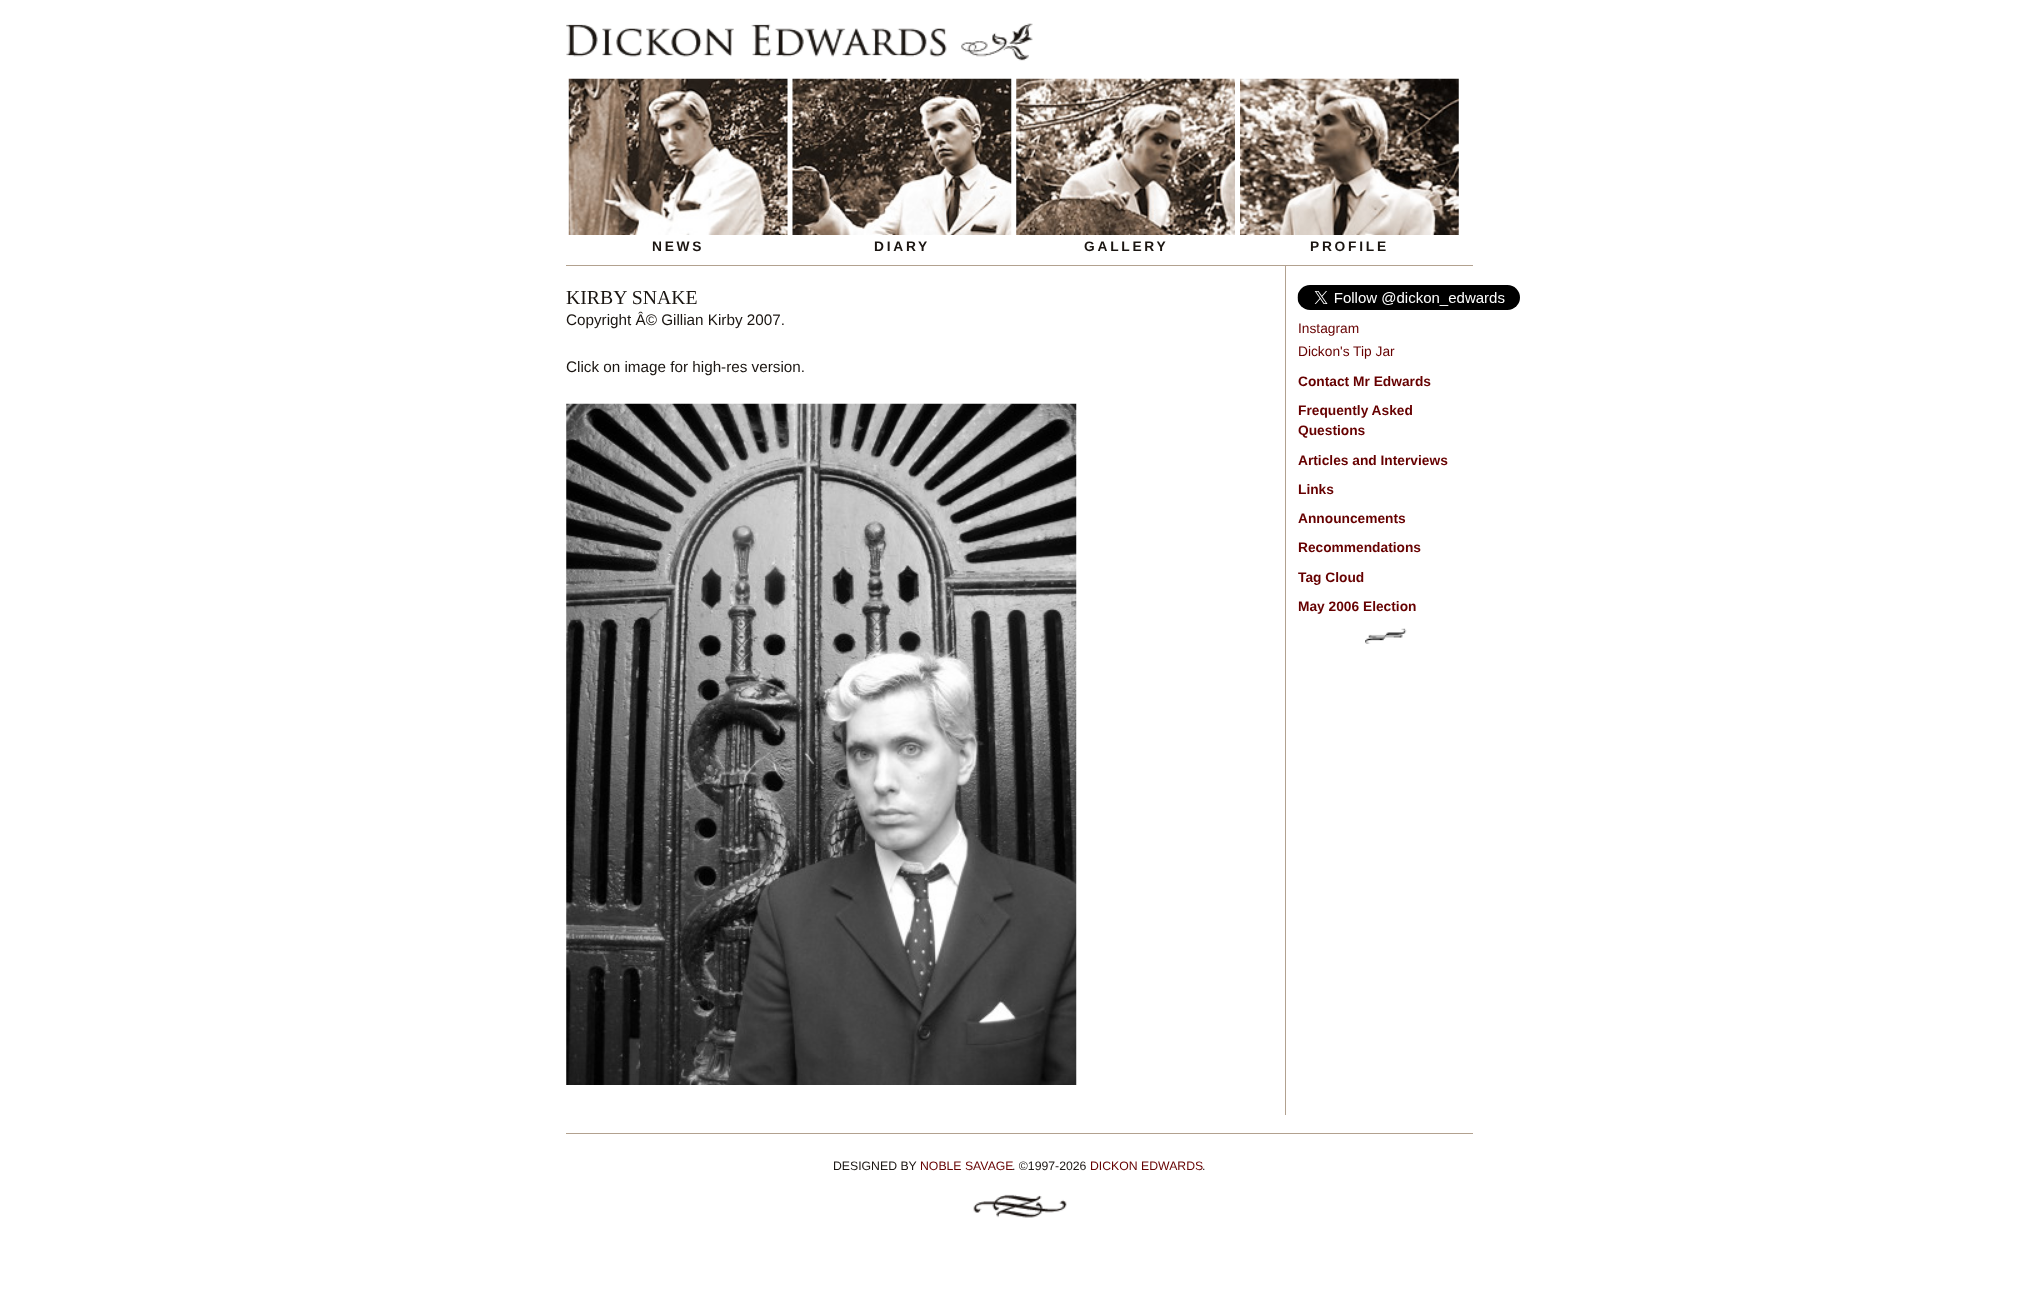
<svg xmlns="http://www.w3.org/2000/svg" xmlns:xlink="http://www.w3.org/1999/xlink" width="2038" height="1310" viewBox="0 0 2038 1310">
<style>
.cls-1{font:bold 13.75px Liberation Sans;letter-spacing:2.75px;fill:#1a1511}
.cls-2{font:19.75px Liberation Serif;fill:#1a1511}
.cls-3{font:15.25px Liberation Sans;fill:#1a1511}
.cls-4{font:13.75px Liberation Sans;fill:#660000}
.cls-5{font:bold 13.75px Liberation Sans;fill:#660000}
.cls-6{font:12.25px Liberation Sans;fill:#1a1511}
.cls-7{font:12.25px Liberation Sans;fill:#660000}
</style>
<rect width="100%" height="100%" fill="#ffffff"/>
<rect fill="#b2a18f" x="566" y="265" width="907" height="1"/>
<image xlink:href="image0.png" x="566" y="23" width="467" height="38"/>
<image xlink:href="image1.png" x="568" y="78" width="220" height="157"/>
<image xlink:href="image2.png" x="792" y="78" width="220" height="157"/>
<image xlink:href="image3.png" x="1016" y="78" width="219" height="157"/>
<image xlink:href="image4.png" x="1240" y="78" width="219" height="157"/>
<rect fill="#b2a18f" x="1285" y="266" width="1" height="849"/>
<image xlink:href="image5.png" x="566" y="403" width="511" height="682"/>
<image xlink:href="image6.png" x="1297" y="285" width="223" height="25"/>
<image xlink:href="image7.png" x="1365" y="628" width="42" height="16"/>
<rect fill="#b2a18f" x="566" y="1133" width="907" height="1"/>
<image xlink:href="image8.png" x="973" y="1194" width="94" height="24"/>
<text class="cls-1" x="652" y="251">NEWS</text>
<text class="cls-1" x="874" y="251">DIARY</text>
<text class="cls-1" x="1084" y="251">GALLERY</text>
<text class="cls-1" x="1310" y="251">PROFILE</text>
<text class="cls-2" x="566" y="304">KIRBY SNAKE</text>
<text class="cls-3" x="566" y="325">Copyright Â© Gillian Kirby 2007.</text>
<text class="cls-3" x="566" y="372">Click on image for high-res version.</text>
<text class="cls-4"><tspan x="1298" y="333">Instagram</tspan><tspan x="1298" y="356">Dickon's Tip Jar</tspan></text>
<text class="cls-5" x="1298" y="386">Contact Mr Edwards</text>
<text class="cls-5"><tspan x="1298" y="415">Frequently Asked</tspan><tspan x="1298" y="435">Questions</tspan></text>
<text class="cls-5" x="1298" y="465">Articles and Interviews</text>
<text class="cls-5" x="1298" y="494">Links</text>
<text class="cls-5" x="1298" y="523">Announcements</text>
<text class="cls-5" x="1298" y="552">Recommendations</text>
<text class="cls-5" x="1298" y="582">Tag Cloud</text>
<text class="cls-5" x="1298" y="611">May 2006 Election</text>
<text class="cls-6" x="833" y="1170">DESIGNED BY</text>
<text class="cls-7" x="920" y="1170">NOBLE SAVAGE</text>
<text class="cls-6" x="1012" y="1170">. ©1997-2026</text>
<text class="cls-7" x="1090" y="1170">DICKON EDWARDS</text>
<text class="cls-6" x="1202" y="1170">.</text>
</svg>
